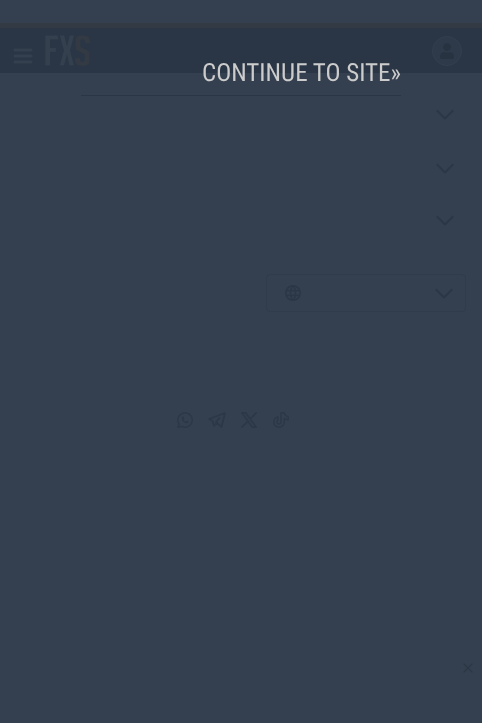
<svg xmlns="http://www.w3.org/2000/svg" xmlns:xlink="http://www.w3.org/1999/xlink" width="482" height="723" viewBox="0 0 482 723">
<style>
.cls-1{font:25px Roboto Condensed;fill:#cccccc}
</style>
<rect width="100%" height="100%" fill="#34404f"/>
<rect fill="#2a3645" x="0" y="28" width="482" height="45"/>
<rect fill="#333a44" x="0" y="23" width="482" height="5"/>
<path fill="none" stroke="#343f4f" stroke-width="3" stroke-linecap="round" stroke-linejoin="round" d="M15 50H31M15 56H31M15 62H31"/>
<image xlink:href="image0.png" x="45" y="35" width="45" height="31"/>
<circle fill="#2e3a4a" stroke="#333f4f" cx="447" cy="51" r="14.5"/>
<image xlink:href="image1.png" x="440" y="43" width="14" height="16"/>
<rect fill="#2a3646" x="81" y="95" width="320" height="1"/>
<path fill="#2b3746" d="M452.5 109.5L454 111L445.5 119.5L444 118Z"/>
<path fill="#2b3746" d="M436 111L437.5 109.5L446 118L444.5 119.5Z"/>
<path fill="#2b3746" d="M452.5 163.5L454 165L445.5 173.5L444 172Z"/>
<path fill="#2b3746" d="M436 165L437.5 163.5L446 172L444.5 173.5ZM452.5 215.5L454 217L445.5 225.5L444 224Z"/>
<path fill="#2b3746" d="M436 217L437.5 215.5L446 224L444.5 225.5Z"/>
<rect fill="none" stroke="#303c4c" x="266.5" y="274.5" width="199" height="37" rx="3.5"/>
<image xlink:href="image2.png" x="285" y="285" width="16" height="16"/>
<path fill="#2b3746" d="M451.5 288.5L453 290L444.5 298.5L443 297Z"/>
<path fill="#2b3746" d="M435 290L436.5 288.5L445 297L443.5 298.5Z"/>
<image xlink:href="image3.png" x="177" y="412" width="16" height="16"/>
<path fill="none" stroke="#2c3848" stroke-width="1.8" stroke-linecap="round" stroke-linejoin="round" d="M219.5 418L216 422L221.5 427L225 413L209 419L212.5 421L214 426L217 422.5"/>
<image xlink:href="image4.png" x="241" y="412" width="16" height="16"/>
<image xlink:href="image5.png" x="273" y="412" width="16" height="16"/>
<image xlink:href="image6.png" x="463" y="663" width="10" height="10"/>
<text class="cls-1" x="202" y="81">CONTINUE TO SITE»</text>
</svg>
